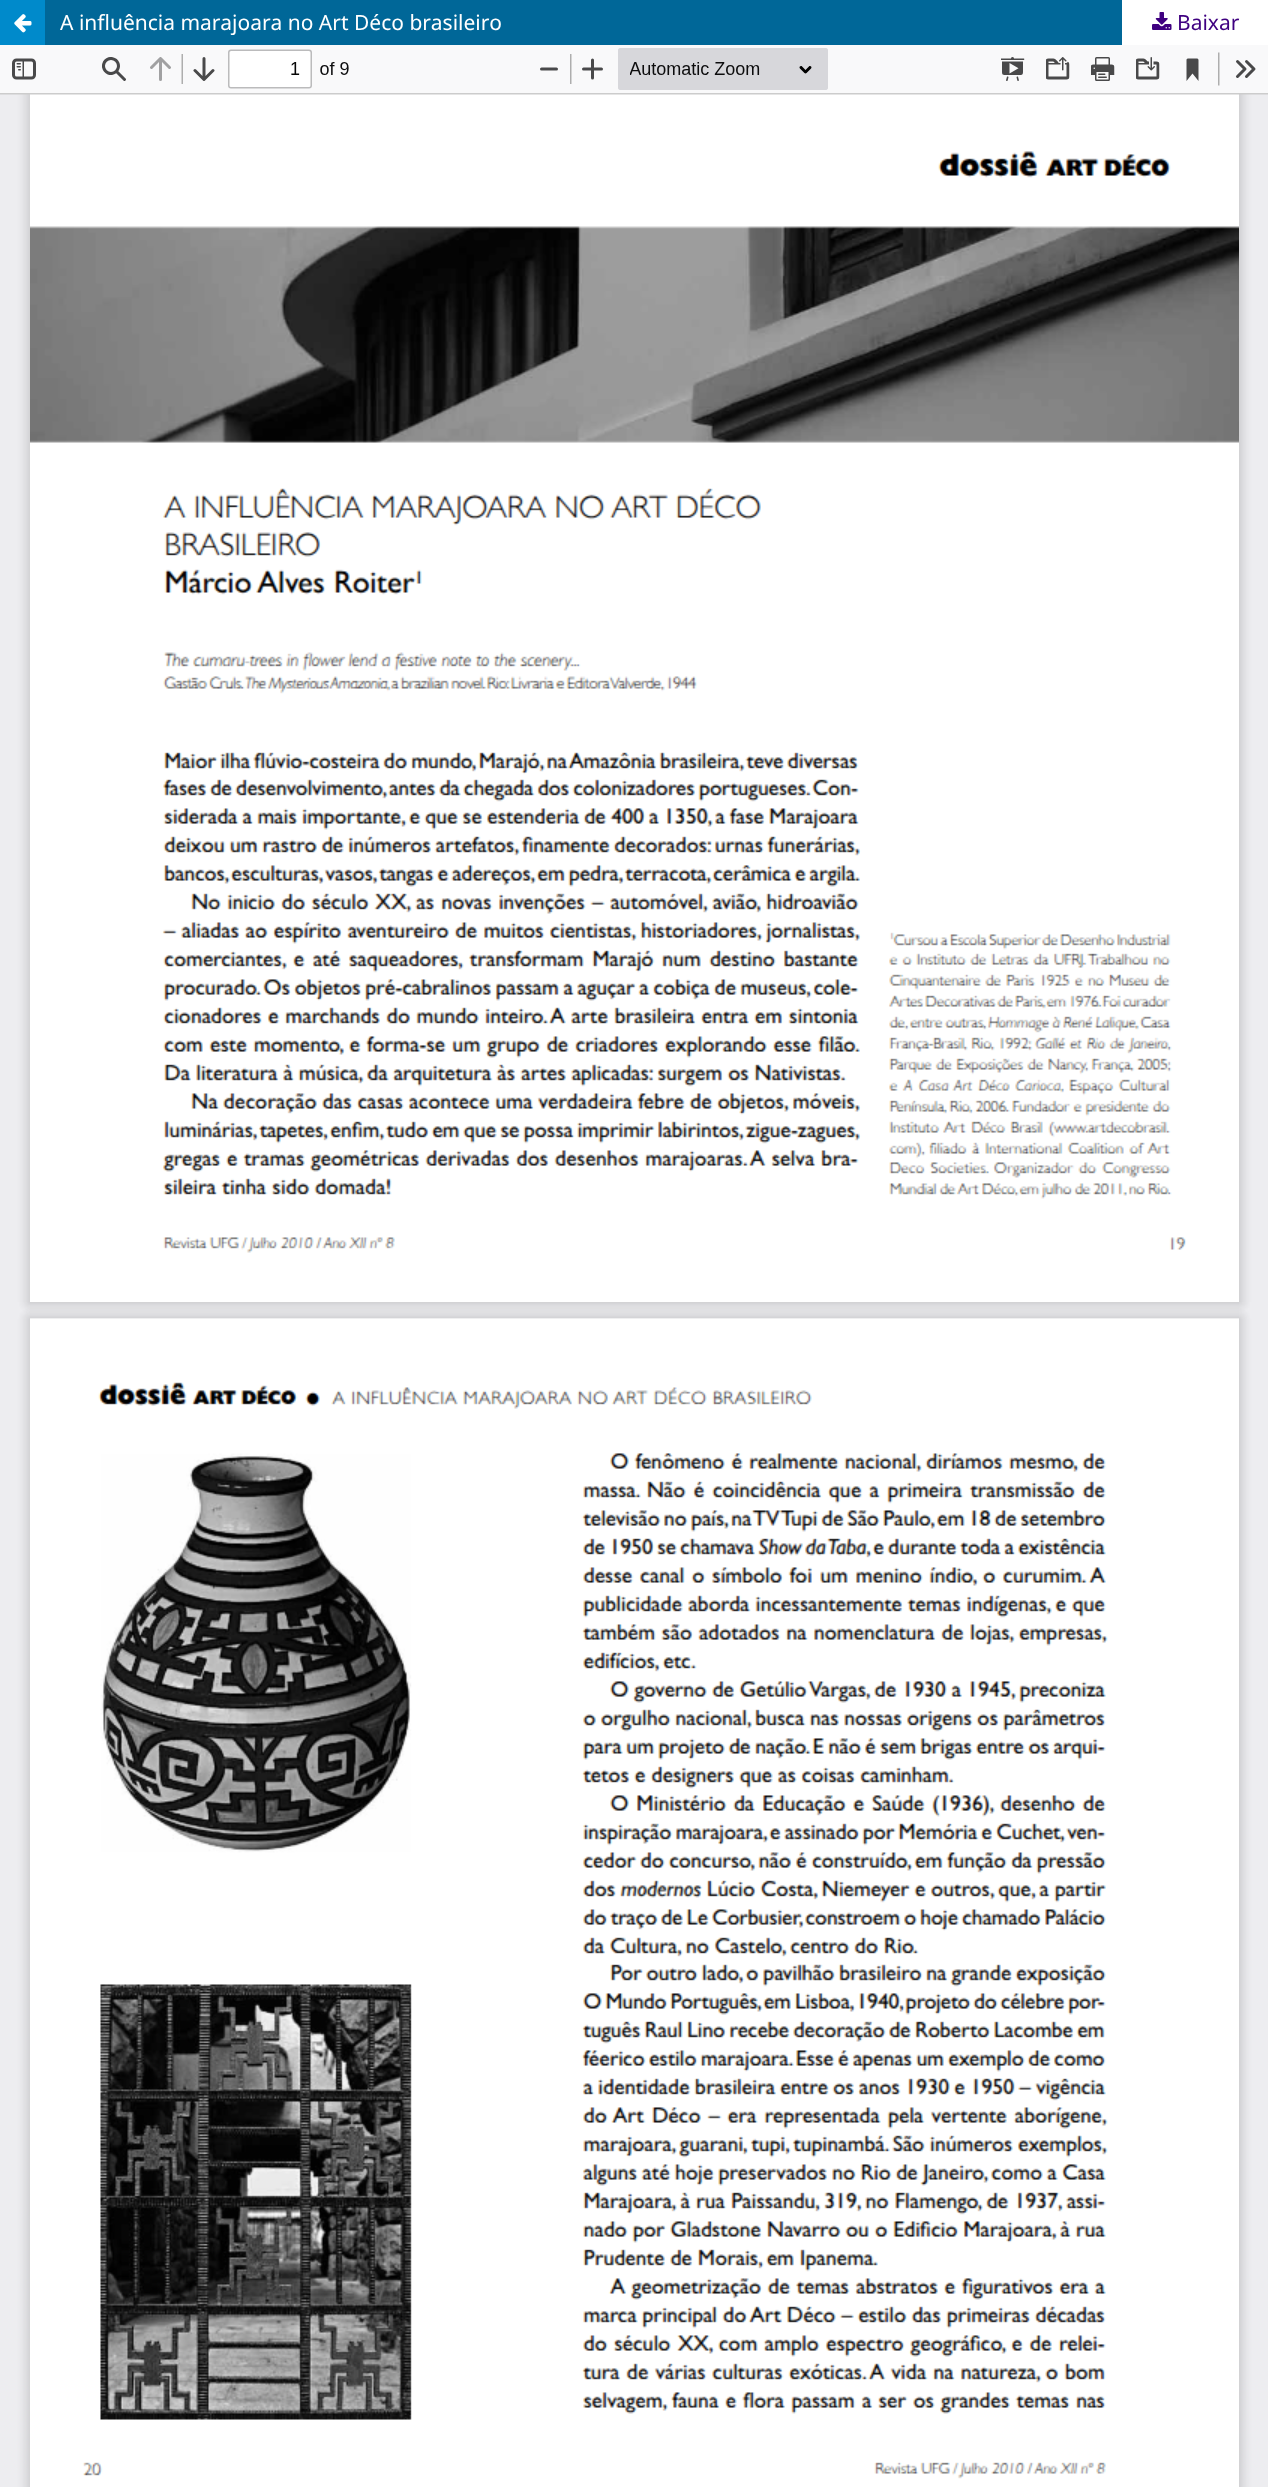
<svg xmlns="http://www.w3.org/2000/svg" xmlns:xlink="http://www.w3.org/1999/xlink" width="1268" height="2487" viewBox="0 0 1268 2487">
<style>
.cls-1{font:21px Noto Sans;fill:#ffffff}
.cls-2{font:21px Noto Sans;fill:#3f0080}
</style>
<rect width="100%" height="100%" fill="#ffffff"/>
<rect fill="#006798" x="45" y="0" width="1077" height="45"/>
<rect fill="#008acb" x="0" y="0" width="45" height="45"/>
<image xlink:href="image0.png" x="14" y="14" width="18" height="19"/>
<image xlink:href="image1.png" x="1152" y="12" width="20" height="18"/>
<image xlink:href="image2.png" x="0" y="45" width="1268" height="2442"/>
<text class="cls-1" x="60" y="30">A influência marajoara no Art Déco brasileiro</text>
<text class="cls-2" x="1177" y="30">Baixar</text>
</svg>
